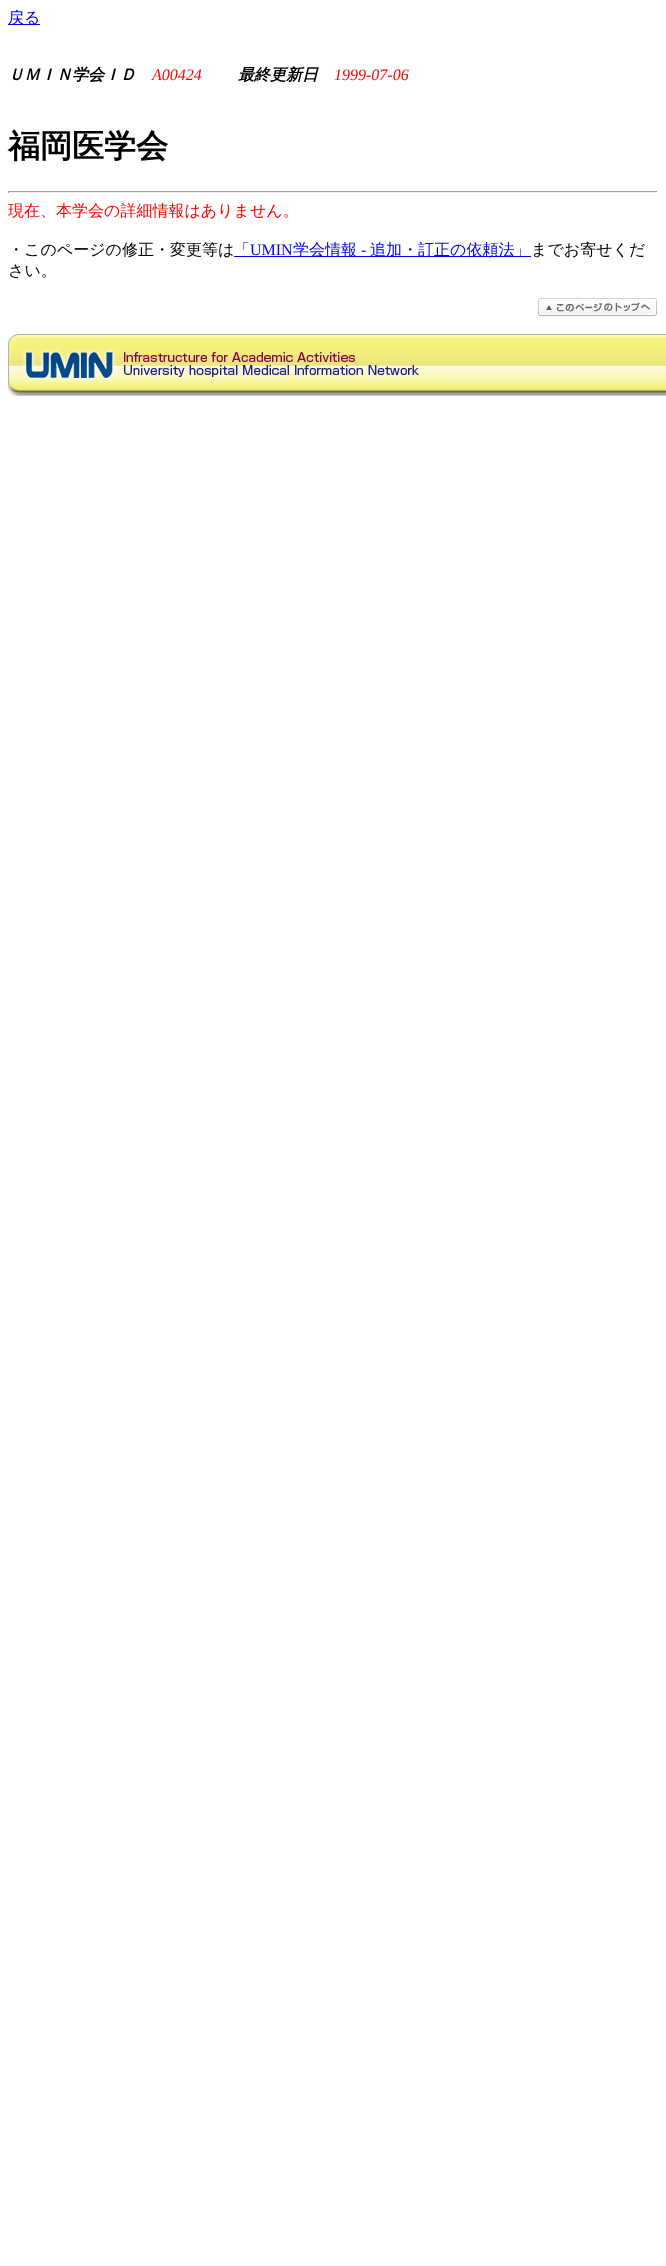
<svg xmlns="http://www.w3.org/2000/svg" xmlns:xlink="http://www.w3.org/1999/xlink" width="666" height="2266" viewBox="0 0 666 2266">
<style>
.cls-1{font:500 16px WenQuanYi Zen Hei;fill:#0000ee}
.cls-2{font:italic bold 16px WenQuanYi Zen Hei;fill:#000000}
.cls-3{font:italic 16px Liberation Serif;fill:#ff0000}
.cls-4{font:bold 32px WenQuanYi Zen Hei;fill:#000000}
.cls-5{font:500 16px WenQuanYi Zen Hei;fill:#ff0000}
.cls-6{font:500 16px WenQuanYi Zen Hei;fill:#000000}
.cls-7{font:16px Liberation Serif;fill:#0000ee}
</style>
<rect width="100%" height="100%" fill="#ffffff"/>
<rect fill="#0000ee" x="8" y="24" width="32" height="1"/>
<rect fill="#9f9f9f" x="8" y="191" width="650" height="1"/>
<rect fill="#eeeeee" x="657" y="191" width="1" height="2"/>
<rect fill="#eeeeee" x="8" y="192" width="650" height="1"/>
<rect fill="#9f9f9f" x="8" y="191" width="1" height="2"/>
<rect fill="#0000ee" x="234" y="256" width="297" height="1"/>
<image xlink:href="image0.png" x="538" y="298" width="119" height="19"/>
<image xlink:href="image1.png" x="8" y="334" width="658" height="62"/>
<text class="cls-1" x="8" y="23">戻る</text>
<text class="cls-2" x="8" y="80">ＵＭＩＮ学会ＩＤ</text>
<text class="cls-3" x="152" y="80">A00424</text>
<text class="cls-2" x="238" y="80">最終更新日</text>
<text class="cls-3" x="334" y="80">1999-07-06</text>
<text class="cls-4" x="8" y="157">福岡医学会</text>
<text class="cls-5" x="8" y="216">現在、本学会の詳細情報はありません。</text>
<text class="cls-6" x="8" y="255">・このページの修正・変更等は</text>
<text class="cls-1" x="234" y="255">「</text>
<text class="cls-7" x="250" y="255">UMIN</text>
<text class="cls-1" x="293" y="255">学会情報</text>
<text class="cls-7" x="361" y="255">-</text>
<text class="cls-1" x="370" y="255">追加・訂正の依頼法」</text>
<text class="cls-6" x="531" y="255">までお寄せくだ</text>
<text class="cls-6" x="8" y="276">さい。</text>
</svg>
